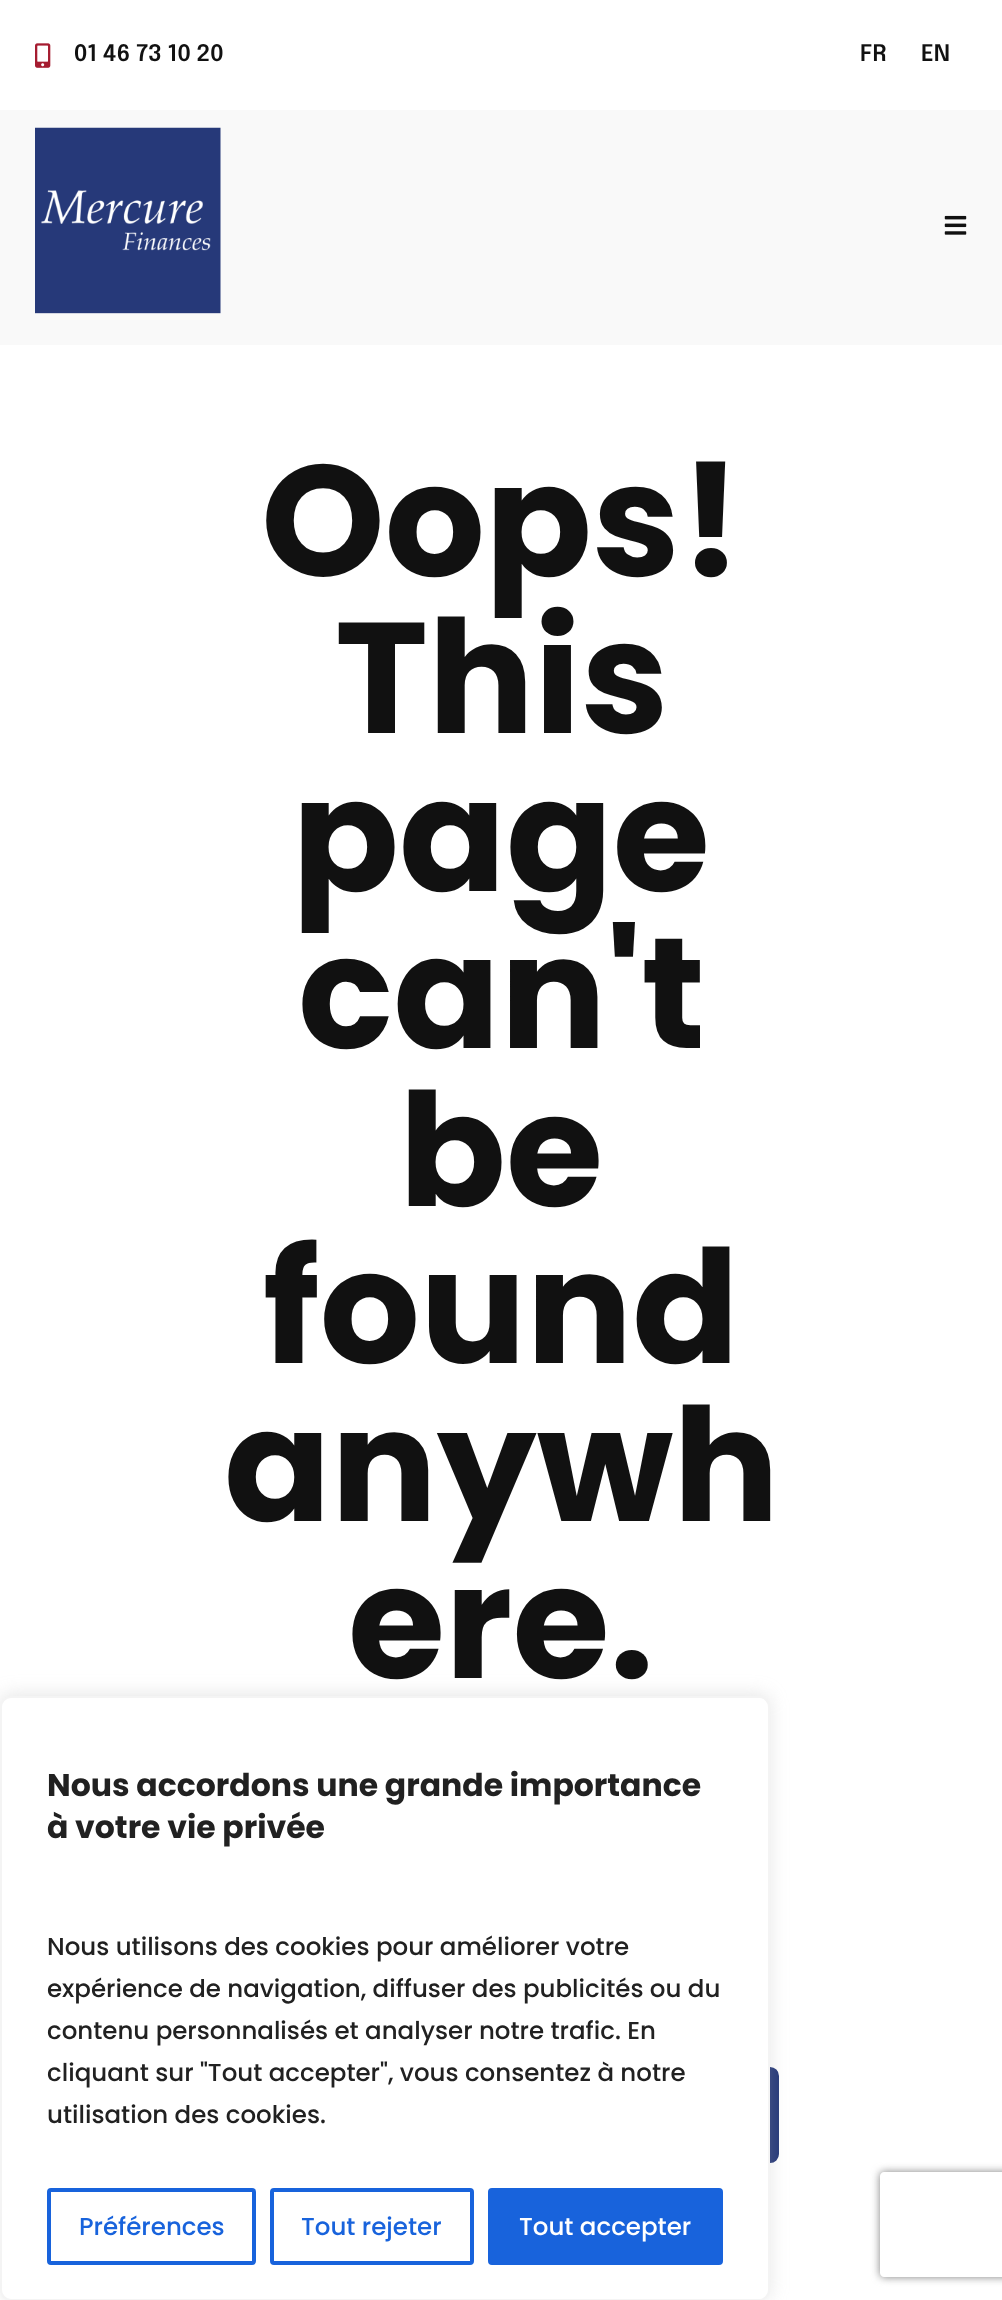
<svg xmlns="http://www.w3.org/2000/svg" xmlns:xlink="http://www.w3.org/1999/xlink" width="1002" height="2300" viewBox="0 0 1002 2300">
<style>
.cls-1{font:600 22.75px Epilogue;fill:#111111}
.cls-2{font:bold 157.5px Poppins;fill:#111111}
.cls-3{font:bold 31.5px Poppins;fill:#212121}
.cls-4{font:500 24.5px Poppins;fill:#212121}
.cls-5{font:500 24.5px Poppins;fill:#1863dc}
.cls-6{font:500 24.5px Poppins;fill:#ffffff}
</style>
<defs>
<clipPath id="clip1"><path d="M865 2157H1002V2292H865ZM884 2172H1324C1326 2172 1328 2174 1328 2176V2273C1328 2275 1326 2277 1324 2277H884C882 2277 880 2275 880 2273V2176C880 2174 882 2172 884 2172Z" clip-rule="evenodd"/></clipPath>
</defs>
<rect width="100%" height="100%" fill="#ffffff"/>
<image xlink:href="image0.png" x="35" y="43" width="16" height="25"/>
<rect fill="#f9f9f9" x="0" y="110" width="1002" height="235"/>
<image xlink:href="image1.png" x="35" y="127" width="186" height="187"/>
<image xlink:href="image2.png" x="944" y="215" width="23" height="20"/>
<path fill="#263979" stroke="#263979" stroke-width="2" d="M551 2068H770C774.5 2068 778 2071.5 778 2076V2154C778 2158.5 774.5 2162 770 2162H551Z"/>
<rect fill="#acabab" fill-opacity="0.3" filter="blur(9px)" x="0" y="1694" width="770" height="606" rx="11"/>
<rect fill="#ffffff" stroke="#f4f4f4" stroke-width="2" x="1" y="1697" width="768" height="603" rx="10"/>
<rect fill="none" stroke="#1863dc" stroke-width="4" x="49" y="2190" width="205" height="73" rx="2"/>
<rect fill="none" stroke="#1863dc" stroke-width="4" x="272" y="2190" width="200" height="73" rx="2"/>
<rect fill="#1863dc" stroke="#1863dc" stroke-width="4" x="490" y="2190" width="231" height="73" rx="2"/>
<g clip-path="url(#clip1)">
<rect fill="#808080" filter="blur(4.5px)" x="880" y="2172" width="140" height="105" rx="4"/>
</g>
<text class="cls-1" x="74" y="61">01 46 73 10 20</text>
<text class="cls-1" x="860" y="61">FR</text>
<text class="cls-1" x="921" y="61">EN</text>
<text class="cls-2" x="261" y="576">Oops!</text>
<text class="cls-2" x="335" y="733">This</text>
<text class="cls-2" x="292" y="891">page</text>
<text class="cls-2" x="298" y="1048">can't</text>
<text class="cls-2" x="399" y="1206">be</text>
<text class="cls-2" x="263" y="1363">found</text>
<text class="cls-2" x="224" y="1521">anywh</text>
<text class="cls-2" x="348" y="1678">ere.</text>
<text class="cls-3"><tspan x="47" y="1796">Nous accordons une grande importance</tspan><tspan x="47" y="1838">à votre vie privée</tspan></text>
<text class="cls-4"><tspan x="47" y="1955">Nous utilisons des cookies pour améliorer votre</tspan><tspan x="47" y="1997">expérience de navigation, diffuser des publicités ou du</tspan><tspan x="47" y="2039">contenu personnalisés et analyser notre trafic. En</tspan><tspan x="47" y="2081">cliquant sur "Tout accepter", vous consentez à notre</tspan><tspan x="47" y="2123">utilisation des cookies.</tspan></text>
<text class="cls-5" x="79" y="2235">Préférences</text>
<text class="cls-5" x="301" y="2235">Tout rejeter</text>
<text class="cls-6" x="519" y="2235">Tout accepter</text>
</svg>
